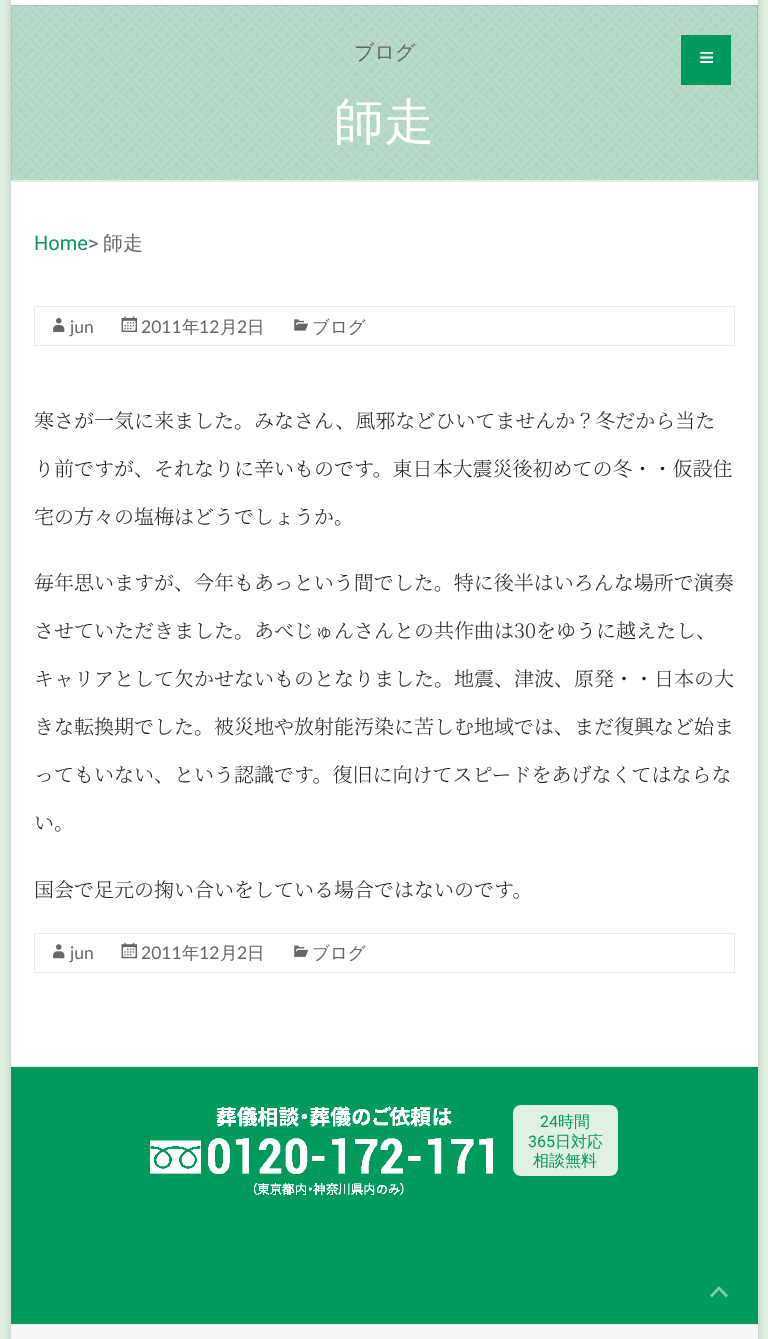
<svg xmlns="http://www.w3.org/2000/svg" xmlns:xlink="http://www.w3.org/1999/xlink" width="768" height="1339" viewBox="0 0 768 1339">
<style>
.cls-1{font:500 20px WenQuanYi Zen Hei;fill:#666666}
.cls-2{font:500 50px WenQuanYi Zen Hei;fill:#ffffff}
.cls-3{font:26px Liberation Sans;fill:#ffffff}
.cls-4{font:20px Roboto;fill:#009a5d}
.cls-5{font:20px Roboto;fill:#666666}
.cls-6{font:17.5px Lato;fill:#666666}
.cls-7{font:500 17.5px WenQuanYi Zen Hei;fill:#666666}
.cls-8{font:200 20px Noto Serif JP;fill:#1f1f1f}
.cls-9{font:16px Roboto;fill:#009a5d}
.cls-10{font:500 16px WenQuanYi Zen Hei;fill:#009a5d}
</style>
<rect width="100%" height="100%" fill="#e0f0e3"/>
<rect fill="#646464" fill-opacity="0.3" filter="blur(4px)" x="11" y="-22" width="747" height="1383" rx="10"/>
<rect fill="#ffffff" x="11" y="0" width="747" height="1066"/>
<rect fill="#cc76a4" x="11" y="5" width="747" height="175"/>
<image xlink:href="image0.png" x="11" y="5" width="747" height="177"/>
<rect fill="#eaeaea" x="11" y="180" width="747" height="1"/>
<rect fill="#009a5d" x="681" y="35" width="50" height="50"/>
<rect fill="none" stroke="#eaeaea" x="34.5" y="306.5" width="700" height="39"/>
<image xlink:href="image1.png" x="53" y="318" width="12" height="14"/>
<image xlink:href="image2.png" x="121" y="316" width="17" height="16"/>
<image xlink:href="image3.png" x="294" y="319" width="15" height="12"/>
<rect fill="none" stroke="#eaeaea" x="34.5" y="933.5" width="700" height="39"/>
<image xlink:href="image4.png" x="53" y="944" width="12" height="15"/>
<image xlink:href="image5.png" x="121" y="942" width="17" height="17"/>
<image xlink:href="image6.png" x="294" y="945" width="15" height="12"/>
<rect fill="#009a5d" x="11" y="1067" width="747" height="257"/>
<rect fill="#eaeaea" x="11" y="1066" width="747" height="1"/>
<image xlink:href="image7.png" x="150" y="1106" width="343" height="90"/>
<rect fill="#e0f0e3" x="513" y="1105" width="105" height="71" rx="8"/>
<rect fill="#f8f8f8" x="11" y="1325" width="747" height="14"/>
<rect fill="#eaeaea" x="11" y="1324" width="747" height="1"/>
<path fill="#80cdae" d="M726 1297.5L719 1290L712 1297.5L710 1295.5L719 1286L728 1295.5Z"/>
<text class="cls-1" x="354" y="59">ブログ</text>
<text class="cls-2" x="334" y="139">師走</text>
<text class="cls-3" x="699" y="66">≡</text>
<text class="cls-4" x="34" y="250">Home</text>
<text class="cls-5" x="88" y="250">&gt;</text>
<text class="cls-1" x="103" y="250">師走</text>
<text class="cls-6" x="70" y="333">jun</text>
<text class="cls-6" x="141" y="333">2011</text>
<text class="cls-7" x="182" y="333">年</text>
<text class="cls-6" x="199" y="333">12</text>
<text class="cls-7" x="220" y="333">月</text>
<text class="cls-6" x="237" y="333">2</text>
<text class="cls-7" x="247" y="333">日</text>
<text class="cls-7" x="312" y="333">ブログ</text>
<text class="cls-8" x="34" y="428">寒さが一気に来ました。みなさん、風邪などひいてませんか？冬だから当た</text>
<text class="cls-8" x="34" y="476">り前ですが、それなりに辛いものです。東日本大震災後初めての冬・・仮設住</text>
<text class="cls-8" x="34" y="524">宅の方々の塩梅はどうでしょうか。</text>
<text class="cls-8" x="34" y="590">毎年思いますが、今年もあっという間でした。特に後半はいろんな場所で演奏</text>
<text class="cls-8" x="34" y="638">させていただきました。あべじゅんさんとの共作曲は30をゆうに越えたし、</text>
<text class="cls-8" x="34" y="686">キャリアとして欠かせないものとなりました。地震、津波、原発・・日本の大</text>
<text class="cls-8" x="34" y="734">きな転換期でした。被災地や放射能汚染に苦しむ地域では、まだ復興など始ま</text>
<text class="cls-8" x="34" y="782">ってもいない、という認識です。復旧に向けてスピードをあげなくてはならな</text>
<text class="cls-8" x="34" y="830">い。</text>
<text class="cls-8" x="34" y="897">国会で足元の掬い合いをしている場合ではないのです。</text>
<text class="cls-6" x="70" y="959">jun</text>
<text class="cls-6" x="141" y="959">2011</text>
<text class="cls-7" x="182" y="959">年</text>
<text class="cls-6" x="199" y="959">12</text>
<text class="cls-7" x="220" y="959">月</text>
<text class="cls-6" x="237" y="959">2</text>
<text class="cls-7" x="247" y="959">日</text>
<text class="cls-7" x="312" y="959">ブログ</text>
<text class="cls-9" x="540" y="1127">24</text>
<text class="cls-10" x="558" y="1127">時間</text>
<text class="cls-9" x="528" y="1147">365</text>
<text class="cls-10" x="555" y="1147">日対応</text>
<text class="cls-10" x="533" y="1166">相談無料</text>
</svg>
